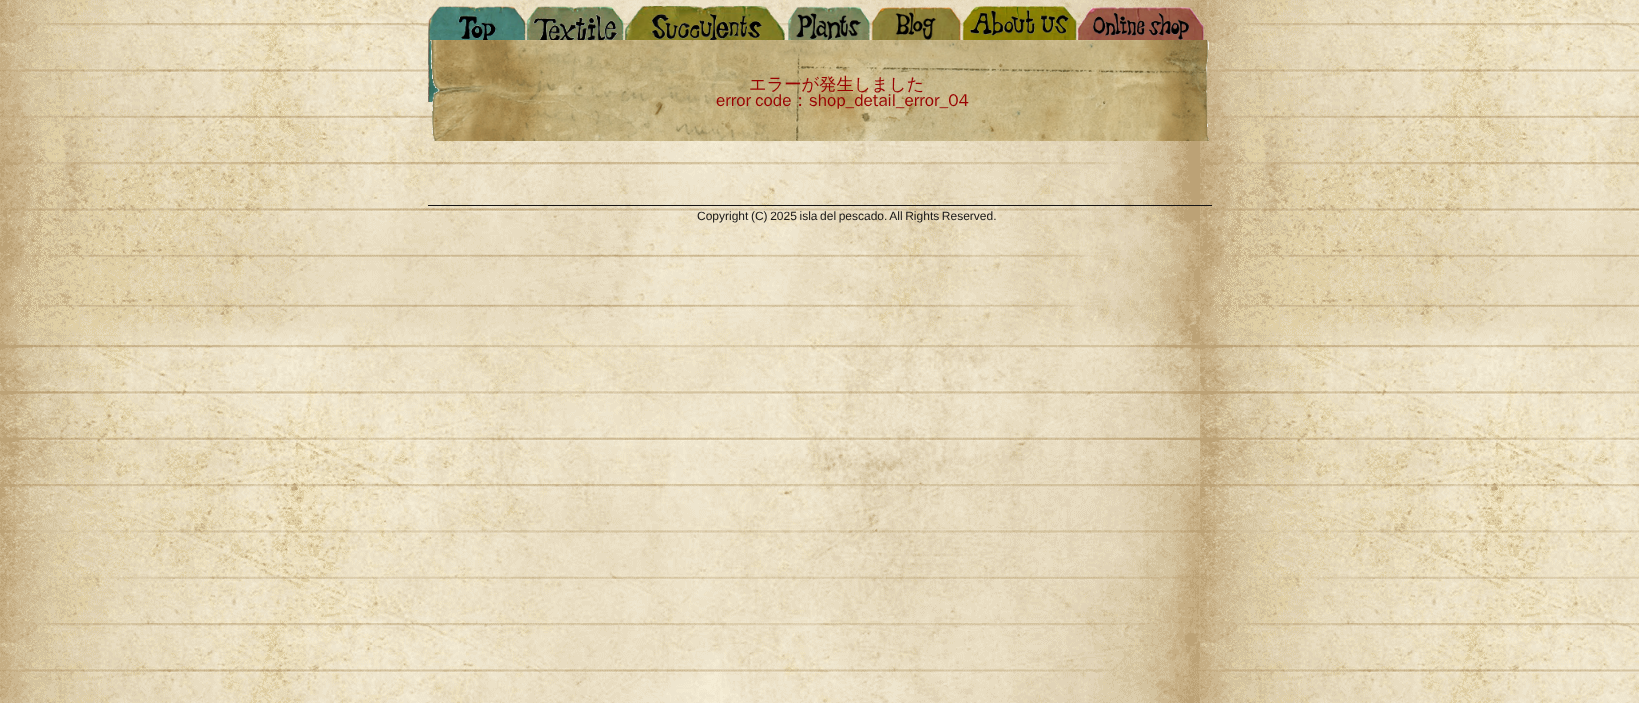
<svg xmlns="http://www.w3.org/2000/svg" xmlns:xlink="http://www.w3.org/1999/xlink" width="1639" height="703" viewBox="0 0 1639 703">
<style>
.cls-1{font:500 17.25px WenQuanYi Zen Hei;fill:#990000}
.cls-2{font:12px Liberation Sans;fill:#161515}
</style>
<rect width="100%" height="100%" fill="#ffffff"/>
<image xlink:href="image0.png" x="0" y="0" width="1639" height="703"/>
<image xlink:href="image1.png" x="428" y="6" width="98" height="96"/>
<image xlink:href="image2.png" x="428" y="6" width="98" height="96"/>
<image xlink:href="image3.png" x="526" y="6" width="98" height="34"/>
<image xlink:href="image4.png" x="526" y="6" width="98" height="34"/>
<image xlink:href="image5.png" x="624" y="6" width="162" height="34"/>
<image xlink:href="image6.png" x="624" y="6" width="162" height="34"/>
<image xlink:href="image7.png" x="788" y="6" width="83" height="34"/>
<image xlink:href="image8.png" x="787" y="6" width="84" height="34"/>
<image xlink:href="image9.png" x="871" y="7" width="90" height="33"/>
<image xlink:href="image10.png" x="871" y="7" width="90" height="33"/>
<image xlink:href="image11.png" x="962" y="6" width="115" height="34"/>
<image xlink:href="image12.png" x="962" y="6" width="115" height="34"/>
<image xlink:href="image13.png" x="1077" y="6" width="127" height="34"/>
<image xlink:href="image14.png" x="1077" y="6" width="127" height="34"/>
<image xlink:href="image15.png" x="430" y="40" width="779" height="101"/>
<rect fill="#161515" x="428" y="205" width="784" height="1"/>
<text class="cls-1" x="749" y="90">エラーが発生しました</text>
<text class="cls-1" x="716" y="106" word-spacing="-1">error code：shop_detail_error_04</text>
<text class="cls-2" x="697" y="220" word-spacing="-0.75">Copyright (C) 2025 isla del pescado. All Rights Reserved.</text>
</svg>
